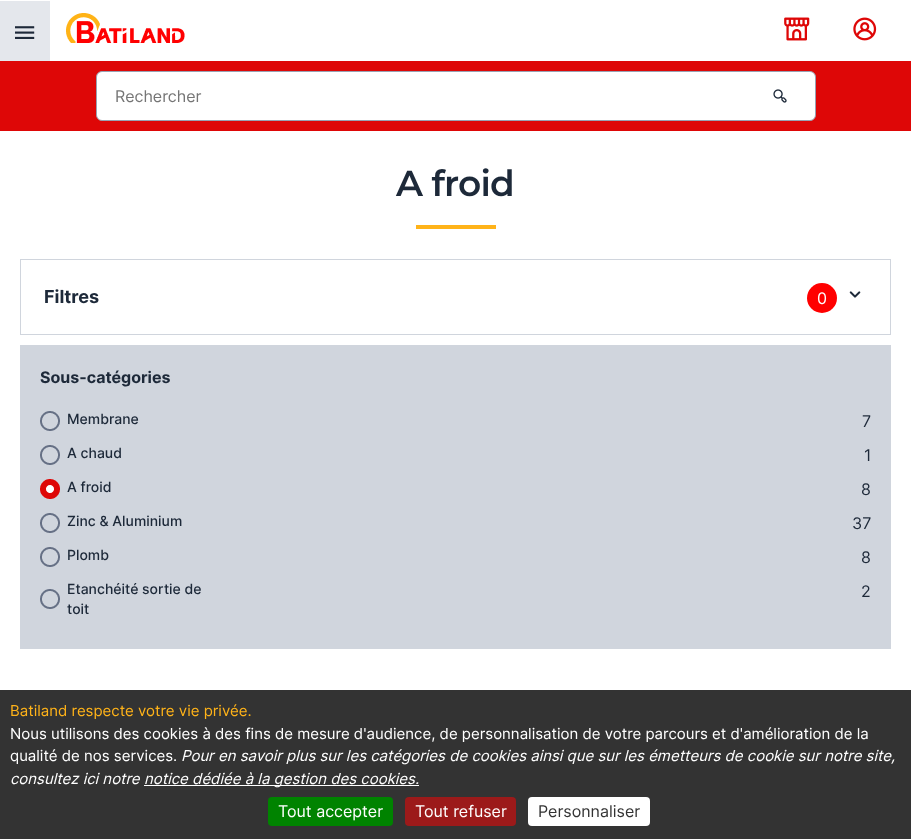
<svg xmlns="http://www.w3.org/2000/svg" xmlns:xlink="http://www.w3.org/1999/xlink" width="911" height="839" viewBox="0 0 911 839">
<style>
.cls-1{font:16px Inter;fill:#757575}
.cls-2{font:100 36px Montserrat;letter-spacing:-0.75px;fill:#1d2939}
.cls-3{font:bold 18px Inter;fill:#1d2939}
.cls-4{font:16px Inter;fill:#ffffff}
.cls-5{font:bold 16px Inter;fill:#1d2939}
.cls-6{font:500 14px Inter;fill:#1d2939}
.cls-7{font:16px Inter;fill:#1d2939}
.cls-8{font:15px Inter;fill:#ffb319}
.cls-9{font:15px Inter;fill:#ffffff}
.cls-10{font:italic 15px Inter;fill:#ffffff}
.cls-11{font:16px Inter;fill:#333333}
</style>
<rect width="100%" height="100%" fill="#ffffff"/>
<rect fill="#e4e7ec" x="0" y="1" width="50" height="60"/>
<image xlink:href="image0.png" x="15" y="26" width="20" height="13"/>
<image xlink:href="image1.png" x="66" y="13" width="119" height="30"/>
<image xlink:href="image2.png" x="784" y="17" width="26" height="24"/>
<image xlink:href="image3.png" x="853" y="17" width="24" height="24"/>
<rect fill="#de0707" x="0" y="61" width="911" height="70"/>
<rect fill="#ffffff" stroke="#98a2b3" x="96.5" y="71.5" width="719" height="49" rx="5.5"/>
<image xlink:href="image4.png" x="773" y="89" width="14" height="14"/>
<rect fill="#ffb319" x="416" y="225" width="80" height="4"/>
<rect fill="none" stroke="#d0d5dd" x="20.5" y="259.5" width="870" height="75"/>
<circle fill="#ff0000" cx="822" cy="298" r="15"/>
<image xlink:href="image5.png" x="849" y="291" width="12" height="7"/>
<rect fill="#d0d5dd" x="20" y="345" width="871" height="304"/>
<image xlink:href="image6.png" x="40" y="411" width="20" height="20"/>
<image xlink:href="image6.png" x="40" y="445" width="20" height="20"/>
<image xlink:href="image7.png" x="40" y="479" width="20" height="20"/>
<image xlink:href="image6.png" x="40" y="513" width="20" height="20"/>
<image xlink:href="image6.png" x="40" y="547" width="20" height="20"/>
<image xlink:href="image6.png" x="40" y="589" width="20" height="20"/>
<rect fill="#333333" x="0" y="690" width="911" height="149"/>
<rect fill="#ffffff" x="144" y="785" width="275" height="1"/>
<rect fill="#008300" x="268" y="797" width="125" height="29" rx="4"/>
<rect fill="#9c1a1a" x="405" y="797" width="111" height="29" rx="4"/>
<rect fill="#ffffff" x="528" y="797" width="122" height="29" rx="4"/>
<text class="cls-1" x="115" y="102">Rechercher</text>
<text class="cls-2" x="396" y="196">A froid</text>
<text class="cls-3" x="44" y="303">Filtres</text>
<text class="cls-4" x="817" y="304">0</text>
<text class="cls-5" x="40" y="383">Sous-catégories</text>
<text class="cls-6" x="67" y="424">Membrane</text>
<text class="cls-7" x="862" y="427">7</text>
<text class="cls-6" x="67" y="458">A chaud</text>
<text class="cls-7" x="864" y="461">1</text>
<text class="cls-6" x="67" y="492">A froid</text>
<text class="cls-7" x="861" y="495">8</text>
<text class="cls-6" x="67" y="526">Zinc &amp; Aluminium</text>
<text class="cls-7" x="852" y="529">37</text>
<text class="cls-6" x="67" y="560">Plomb</text>
<text class="cls-7" x="861" y="563">8</text>
<text class="cls-6"><tspan x="67" y="594">Etanchéité sortie de</tspan><tspan x="67" y="614">toit</tspan></text>
<text class="cls-7" x="861" y="597">2</text>
<text class="cls-8" x="10" y="716">Batiland respecte votre vie privée.</text>
<text class="cls-9"><tspan x="10" y="739">Nous utilisons des cookies à des fins de mesure d'audience, de personnalisation de votre parcours et d'amélioration de la</tspan><tspan x="10" y="761">qualité de nos services.</tspan></text>
<text class="cls-10" x="181" y="761">Pour en savoir plus sur les catégories de cookies ainsi que sur les émetteurs de cookie sur notre site,</text>
<text class="cls-10" x="10" y="784">consultez ici notre</text>
<text class="cls-10" x="144" y="784">notice dédiée à la gestion des cookies.</text>
<text class="cls-4" x="278" y="817">Tout accepter</text>
<text class="cls-4" x="415" y="817">Tout refuser</text>
<text class="cls-11" x="538" y="817">Personnaliser</text>
</svg>
